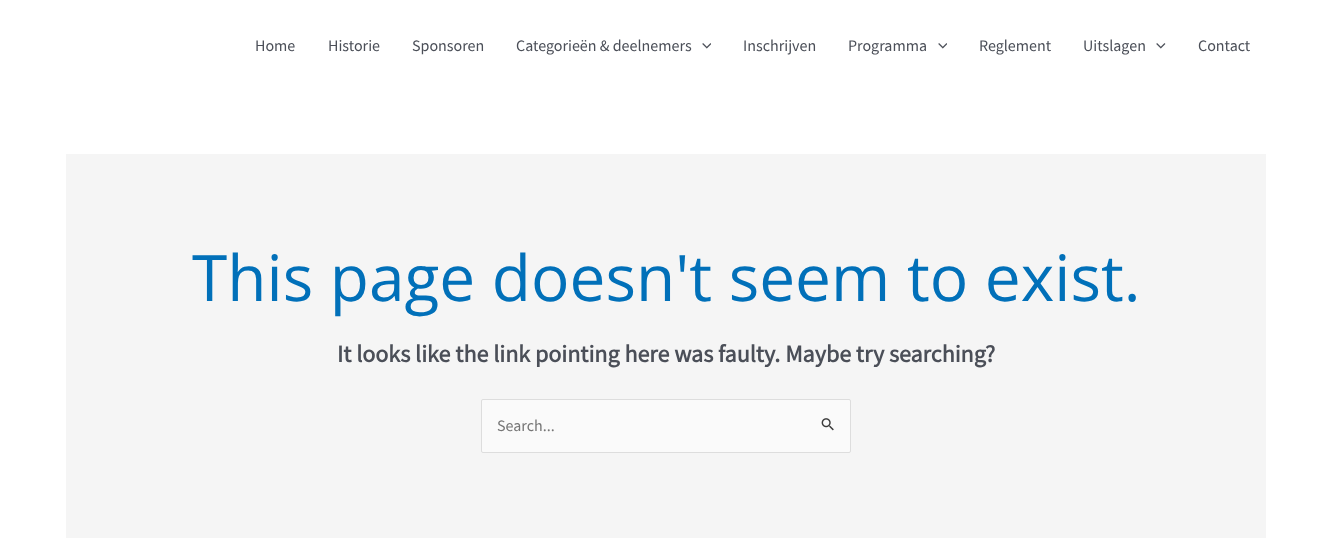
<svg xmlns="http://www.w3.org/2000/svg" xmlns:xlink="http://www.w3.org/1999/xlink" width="1332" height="542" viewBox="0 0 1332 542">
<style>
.cls-1{font:16px Source Sans Pro;fill:#4b4f58}
.cls-2{font:64px Open Sans;fill:#0170b9}
.cls-3{font:bold 24px Source Sans Pro;fill:#4b4f58}
.cls-4{font:16px Source Sans Pro;fill:#757575}
</style>
<rect width="100%" height="100%" fill="#ffffff"/>
<image xlink:href="image0.png" x="702" y="43" width="9" height="6"/>
<image xlink:href="image0.png" x="938" y="43" width="9" height="6"/>
<image xlink:href="image1.png" x="1156" y="43" width="10" height="6"/>
<rect fill="#f5f5f5" x="66" y="154" width="1200" height="384"/>
<rect fill="#fafafa" stroke="#dddddd" x="481.5" y="399.5" width="369" height="53" rx="1.5"/>
<image xlink:href="image2.png" x="821" y="418" width="13" height="13"/>
<text class="cls-1" x="255" y="51">Home</text>
<text class="cls-1" x="328" y="51">Historie</text>
<text class="cls-1" x="412" y="51">Sponsoren</text>
<text class="cls-1" x="516" y="51">Categorieën &amp; deelnemers</text>
<text class="cls-1" x="743" y="51">Inschrijven</text>
<text class="cls-1" x="848" y="51">Programma</text>
<text class="cls-1" x="979" y="51">Reglement</text>
<text class="cls-1" x="1083" y="51">Uitslagen</text>
<text class="cls-1" x="1198" y="51">Contact</text>
<text class="cls-2" x="192" y="301">This page doesn't seem to exist.</text>
<text class="cls-3" x="337" y="362">It looks like the link pointing here was faulty. Maybe try searching?</text>
<text class="cls-4" x="497" y="431">Search...</text>
</svg>
